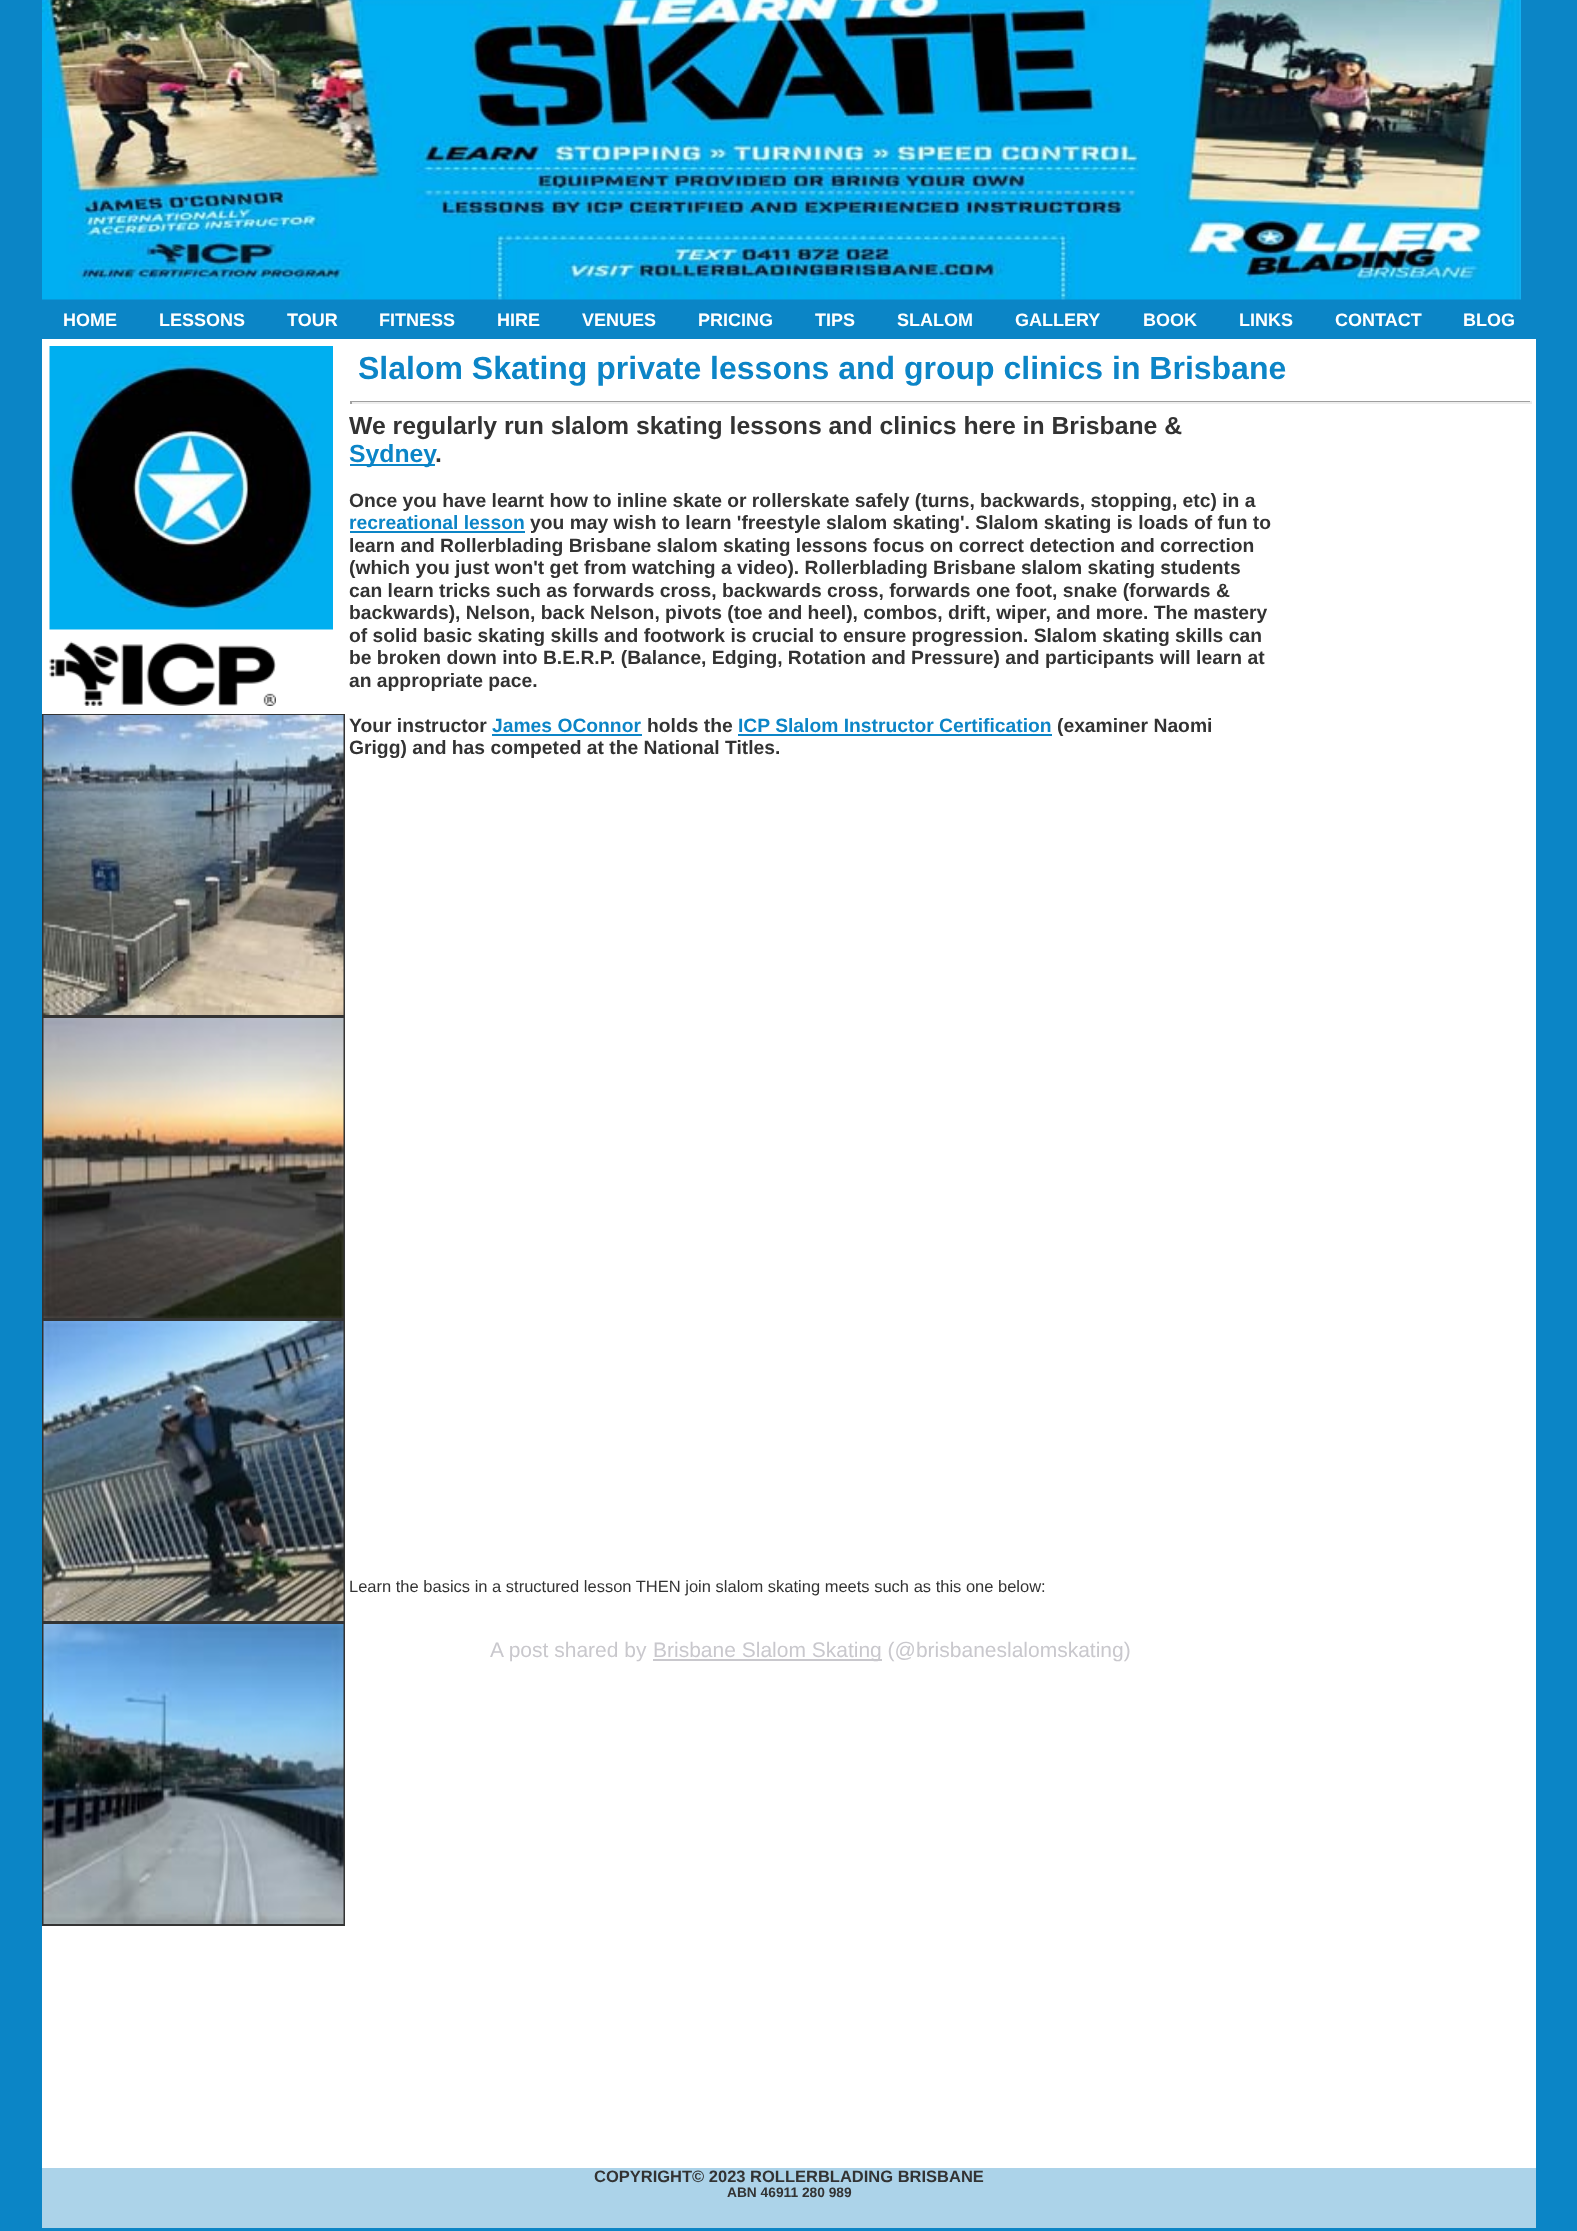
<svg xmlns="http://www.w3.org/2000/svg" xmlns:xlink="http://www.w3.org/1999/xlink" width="1577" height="2231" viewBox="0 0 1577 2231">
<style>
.cls-1{font:bold 18px Liberation Sans;fill:#ffffff}
.cls-2{font:bold 32px Liberation Sans;fill:#0c85c7}
.cls-3{font:bold 24.75px Liberation Sans;fill:#333333}
.cls-4{font:bold 24.75px Liberation Sans;fill:#0c85c7}
.cls-5{font:bold 19.3px Liberation Sans;fill:#333333}
.cls-6{font:bold 19.3px Liberation Sans;fill:#0c85c7}
.cls-7{font:16.5px Liberation Sans;fill:#333333}
.cls-8{font:21px Liberation Sans;fill:#c9c8cd}
.cls-9{font:bold 16.5px Liberation Sans;fill:#333333}
.cls-10{font:bold 13.75px Liberation Sans;fill:#333333}
</style>
<rect width="100%" height="100%" fill="#0b85c6"/>
<image xlink:href="image0.png" x="42" y="0" width="1479" height="300"/>
<rect fill="#ffffff" x="42" y="339" width="1494" height="1829"/>
<image xlink:href="image1.png" x="49" y="346" width="284" height="284"/>
<image xlink:href="image2.png" x="49" y="641" width="227" height="65"/>
<rect fill="none" stroke="#333333" stroke-width="2" x="43" y="715" width="301" height="301"/>
<image xlink:href="image3.png" x="43" y="715" width="301" height="300"/>
<rect fill="none" stroke="#333333" stroke-width="2" x="43" y="1018" width="301" height="301"/>
<image xlink:href="image4.png" x="43" y="1018" width="301" height="300"/>
<rect fill="none" stroke="#333333" stroke-width="2" x="43" y="1321" width="301" height="301"/>
<image xlink:href="image5.png" x="43" y="1321" width="301" height="300"/>
<rect fill="none" stroke="#333333" stroke-width="2" x="43" y="1624" width="301" height="301"/>
<image xlink:href="image6.png" x="43" y="1624" width="301" height="300"/>
<rect fill="#9f9f9f" x="350" y="401" width="1182" height="1"/>
<rect fill="#eeeeee" x="1530" y="401" width="2" height="3"/>
<rect fill="#eeeeee" x="350" y="402" width="1182" height="2"/>
<rect fill="#9f9f9f" x="350" y="401" width="2" height="3"/>
<rect fill="#0c85c7" x="350" y="464" width="85" height="2"/>
<rect fill="#0c85c7" x="350" y="531" width="175" height="2"/>
<rect fill="#0c85c7" x="492" y="734" width="150" height="2"/>
<rect fill="#0c85c7" x="738" y="734" width="314" height="2"/>
<rect fill="#c9c8cd" x="653" y="1659" width="229" height="2"/>
<rect fill="#acd3e9" x="42" y="2168" width="1494" height="60"/>
<text class="cls-1" x="63" y="326">HOME</text>
<text class="cls-1" x="159" y="326">LESSONS</text>
<text class="cls-1" x="287" y="326">TOUR</text>
<text class="cls-1" x="379" y="326">FITNESS</text>
<text class="cls-1" x="497" y="326">HIRE</text>
<text class="cls-1" x="582" y="326">VENUES</text>
<text class="cls-1" x="698" y="326">PRICING</text>
<text class="cls-1" x="815" y="326">TIPS</text>
<text class="cls-1" x="897" y="326">SLALOM</text>
<text class="cls-1" x="1015" y="326">GALLERY</text>
<text class="cls-1" x="1143" y="326">BOOK</text>
<text class="cls-1" x="1239" y="326">LINKS</text>
<text class="cls-1" x="1335" y="326">CONTACT</text>
<text class="cls-1" x="1463" y="326">BLOG</text>
<text class="cls-2" x="358" y="379">Slalom Skating private lessons and group clinics in Brisbane</text>
<text class="cls-3" x="349" y="434">We regularly run slalom skating lessons and clinics here in Brisbane &amp;</text>
<text class="cls-4" x="349" y="462">Sydney</text>
<text class="cls-3" x="435" y="462">.</text>
<text class="cls-5" x="349" y="507">Once you have learnt how to inline skate or rollerskate safely (turns, backwards, stopping, etc) in a</text>
<text class="cls-6" x="349" y="529">recreational lesson</text>
<text class="cls-5" x="530" y="529">you may wish to learn 'freestyle slalom skating'. Slalom skating is loads of fun to</text>
<text class="cls-5"><tspan x="349" y="552">learn and Rollerblading Brisbane slalom skating lessons focus on correct detection and correction</tspan><tspan x="349" y="574">(which you just won't get from watching a video). Rollerblading Brisbane slalom skating students</tspan><tspan x="349" y="597">can learn tricks such as forwards cross, backwards cross, forwards one foot, snake (forwards &amp;</tspan><tspan x="349" y="619">backwards), Nelson, back Nelson, pivots (toe and heel), combos, drift, wiper, and more. The mastery</tspan><tspan x="349" y="642">of solid basic skating skills and footwork is crucial to ensure progression. Slalom skating skills can</tspan><tspan x="349" y="664">be broken down into B.E.R.P. (Balance, Edging, Rotation and Pressure) and participants will learn at</tspan><tspan x="349" y="687">an appropriate pace.</tspan></text>
<text class="cls-5" x="349" y="732">Your instructor</text>
<text class="cls-6" x="492" y="732">James OConnor</text>
<text class="cls-5" x="647" y="732">holds the</text>
<text class="cls-6" x="738" y="732">ICP Slalom Instructor Certification</text>
<text class="cls-5" x="1057" y="732">(examiner Naomi</text>
<text class="cls-5" x="349" y="754">Grigg) and has competed at the National Titles.</text>
<text class="cls-7" x="349" y="1592">Learn the basics in a structured lesson THEN join slalom skating meets such as this one below:</text>
<text class="cls-8" x="490" y="1657">A post shared by</text>
<text class="cls-8" x="653" y="1657">Brisbane Slalom Skating (@brisbaneslalomskating)</text>
<text class="cls-9" x="594" y="2182">COPYRIGHT© 2023 ROLLERBLADING BRISBANE</text>
<text class="cls-10" x="727" y="2197">ABN 46911 280 989</text>
</svg>
